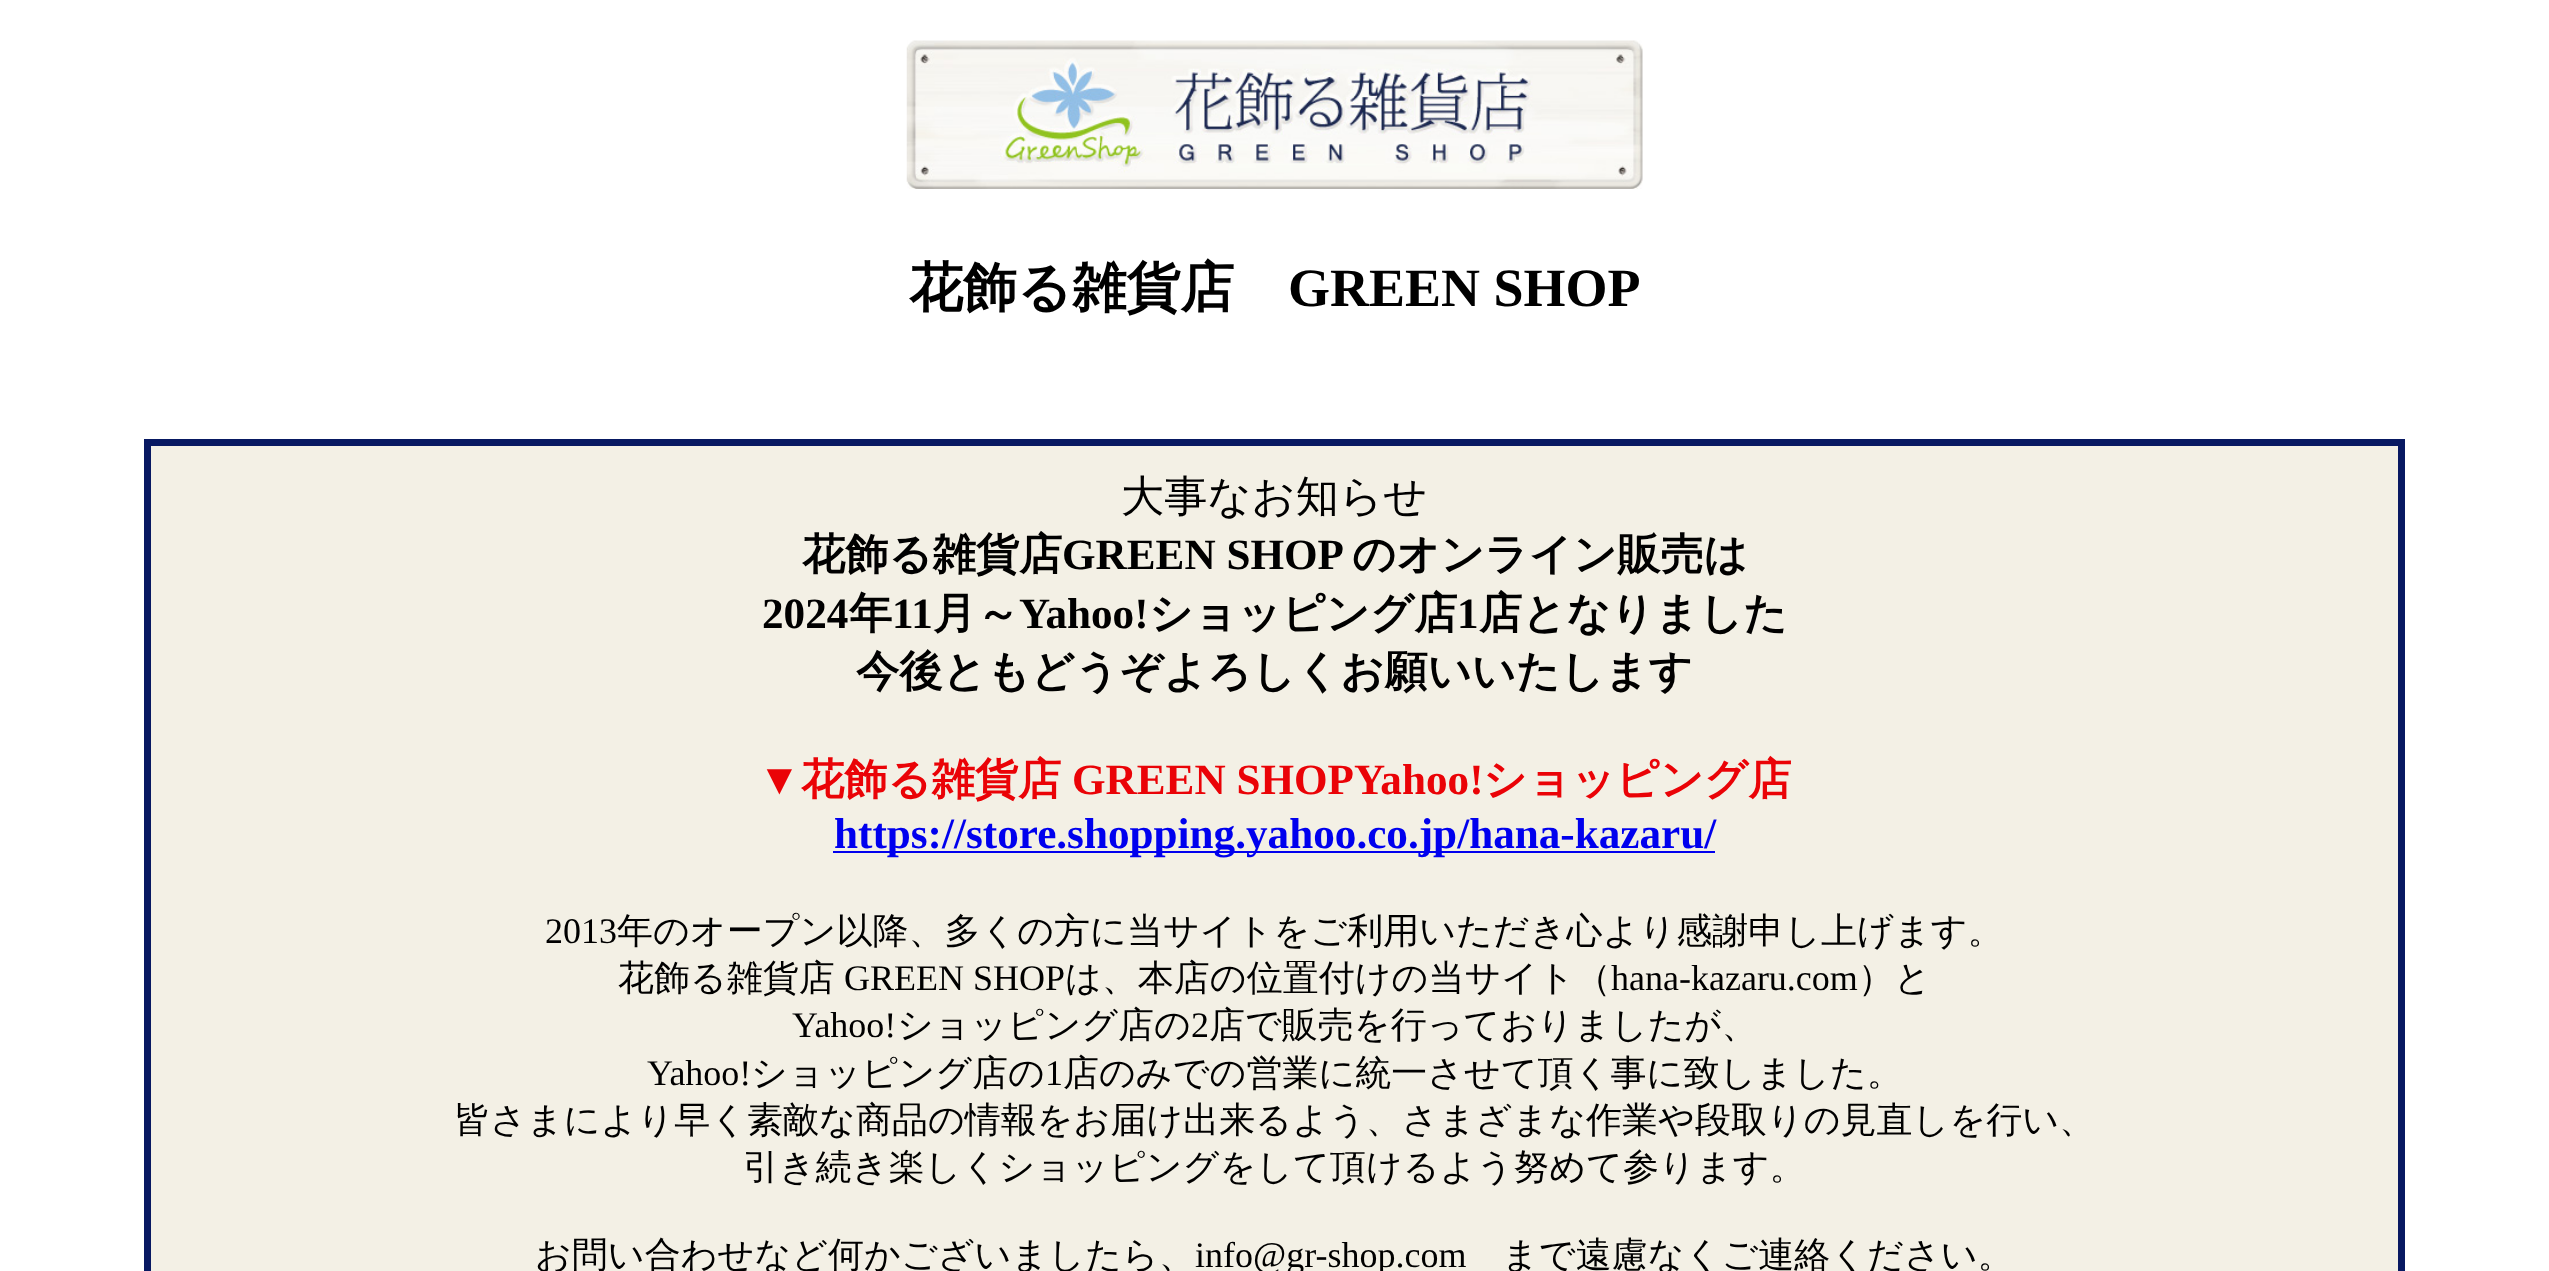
<svg xmlns="http://www.w3.org/2000/svg" xmlns:xlink="http://www.w3.org/1999/xlink" width="2549" height="1271" viewBox="0 0 2549 1271">
<style>
.cls-1{font:bold 54px WenQuanYi Zen Hei;fill:#000000}
.cls-2{font:bold 54px Liberation Serif;fill:#000000}
.cls-3{font:500 43.2px WenQuanYi Zen Hei;fill:#000000}
.cls-4{font:bold 43.2px WenQuanYi Zen Hei;fill:#000000}
.cls-5{font:bold 43.2px Liberation Serif;fill:#000000}
.cls-6{font:bold 43.2px Liberation Serif;fill:#ea0307}
.cls-7{font:bold 43.2px WenQuanYi Zen Hei;fill:#ea0307}
.cls-8{font:bold 43.2px Liberation Serif;fill:#0000ee}
.cls-9{font:36px Liberation Serif;fill:#000000}
.cls-10{font:500 36px WenQuanYi Zen Hei;fill:#000000}
</style>
<rect width="100%" height="100%" fill="#ffffff"/>
<image xlink:href="image0.png" x="906" y="40" width="737" height="149"/>
<rect fill="#f3f0e5" stroke="#081962" stroke-width="7" x="147.5" y="442.5" width="2254" height="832"/>
<rect fill="#0000ee" x="833" y="851" width="882" height="2"/>
<text class="cls-1" x="909" y="306">花飾る雑貨店</text>
<text class="cls-2" x="1288" y="306">GREEN SHOP</text>
<text class="cls-3" x="1121" y="511">大事なお知らせ</text>
<text class="cls-4" x="802" y="569">花飾る雑貨店</text>
<text class="cls-5" x="1062" y="569">GREEN SHOP</text>
<text class="cls-4" x="1352" y="569">のオンライン販売は</text>
<text class="cls-5" x="762" y="628">2024</text>
<text class="cls-4" x="849" y="628">年</text>
<text class="cls-5" x="892" y="628">11</text>
<text class="cls-4" x="933" y="628">月～</text>
<text class="cls-5" x="1019" y="628">Yahoo!</text>
<text class="cls-4" x="1149" y="628">ショッピング店</text>
<text class="cls-5" x="1457" y="628">1</text>
<text class="cls-4" x="1479" y="628">店となりました</text>
<text class="cls-4" x="856" y="686">今後ともどうぞよろしくお願いいたします</text>
<text class="cls-6" x="758" y="794">▼</text>
<text class="cls-7" x="801" y="794">花飾る雑貨店</text>
<text class="cls-6" x="1072" y="794">GREEN SHOPYahoo!</text>
<text class="cls-7" x="1483" y="794">ショッピング店</text>
<text class="cls-8" x="834" y="848">https://store.shopping.yahoo.co.jp/hana-kazaru/</text>
<text class="cls-9" x="545" y="943">2013</text>
<text class="cls-10" x="617" y="943">年のオープン以降、多くの方に当サイトをご利用いただき心より感謝申し上げます。</text>
<text class="cls-10" x="618" y="990">花飾る雑貨店</text>
<text class="cls-9" x="844" y="990">GREEN SHOP</text>
<text class="cls-10" x="1065" y="990">は、本店の位置付けの当サイト（</text>
<text class="cls-9" x="1611" y="990">hana-kazaru.com</text>
<text class="cls-10" x="1858" y="990">）と</text>
<text class="cls-9" x="792" y="1037">Yahoo!</text>
<text class="cls-10" x="897" y="1037">ショッピング店の</text>
<text class="cls-9" x="1191" y="1037">2</text>
<text class="cls-10" x="1209" y="1037">店で販売を行っておりましたが、</text>
<text class="cls-9" x="647" y="1085">Yahoo!</text>
<text class="cls-10" x="751" y="1085">ショッピング店の</text>
<text class="cls-9" x="1045" y="1085">1</text>
<text class="cls-10" x="1063" y="1085">店のみでの営業に統一させて頂く事に致しました。</text>
<text class="cls-10" x="454" y="1132">皆さまにより早く素敵な商品の情報をお届け出来るよう、さまざまな作業や段取りの見直しを行い、</text>
<text class="cls-10" x="743" y="1179">引き続き楽しくショッピングをして頂けるよう努めて参ります。</text>
<text class="cls-10" x="535" y="1267">お問い合わせなど何かございましたら、</text>
<text class="cls-9" x="1195" y="1267">info@gr-shop.com</text>
<text class="cls-10" x="1502" y="1267">まで遠慮なくご連絡ください。</text>
</svg>
